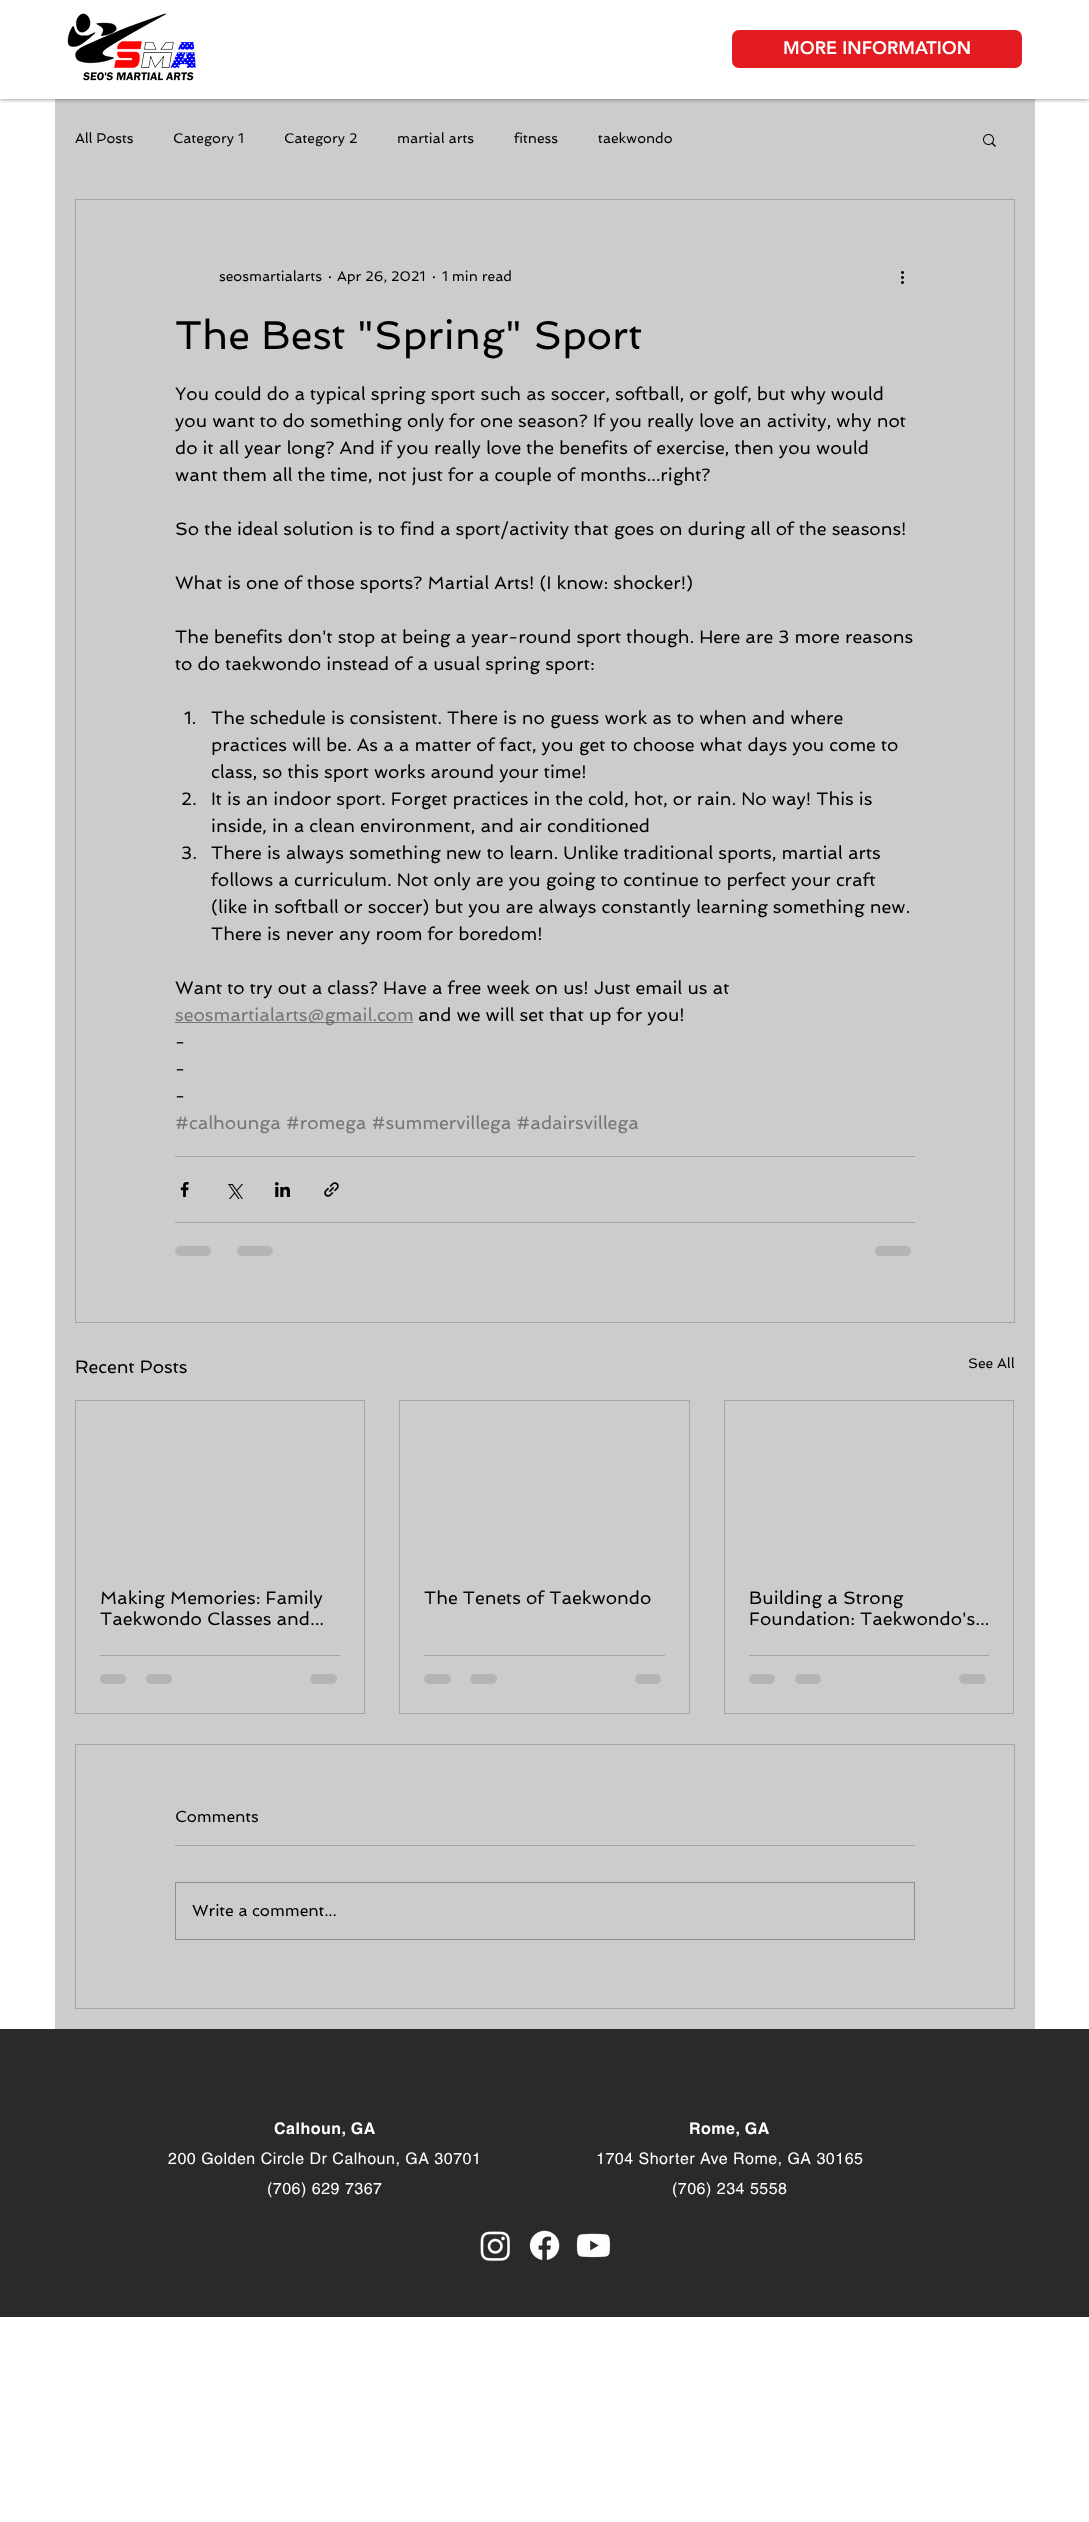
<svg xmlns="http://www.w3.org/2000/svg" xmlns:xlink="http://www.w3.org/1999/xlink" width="1089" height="2522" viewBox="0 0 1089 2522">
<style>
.cls-1{font:900 18px 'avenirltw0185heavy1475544';fill:#ffffff}
.cls-2{font:14px Spinnaker;fill:#000000}
.cls-3{font:40px Spinnaker;fill:#000000}
.cls-4{font:18px Spinnaker;fill:#000000}
.cls-5{font:18px Spinnaker;fill:#747575}
.cls-6{font:16px Spinnaker;fill:#000000}
.cls-7{font:bold 16px helvetica;letter-spacing:0.5px;fill:#ffffff}
.cls-8{font:16px helvetica;letter-spacing:0.5px;fill:#ffffff}
</style>
<defs>
<clipPath id="clip1"><rect x="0" y="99" width="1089" height="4"/></clipPath>
</defs>
<rect width="100%" height="100%" fill="#ffffff"/>
<rect fill="#cccccc" x="55" y="99" width="980" height="1930"/>
<g clip-path="url(#clip1)">
<rect fill="#000000" fill-opacity="0.5" filter="blur(2.5px)" x="0" y="0" width="1089" height="99"/>
</g>
<image xlink:href="image0.png" x="67" y="13" width="129" height="68"/>
<rect fill="#e21c21" stroke="#ffffff" stroke-width="3" x="730.5" y="28.5" width="293" height="41" rx="8.5"/>
<image xlink:href="image1.png" x="983" y="134" width="13" height="13"/>
<rect fill="none" stroke="#a6a6a6" x="75.5" y="199.5" width="939" height="1123"/>
<image xlink:href="image2.png" x="901" y="271" width="3" height="13"/>
<rect fill="#747575" x="175" y="1022" width="238" height="1"/>
<rect fill="#a3a3a3" x="175" y="1156" width="740" height="1"/>
<image xlink:href="image3.png" x="180" y="1182" width="9" height="15"/>
<image xlink:href="image4.png" x="228" y="1184" width="15" height="15"/>
<image xlink:href="image5.png" x="275" y="1182" width="15" height="15"/>
<image xlink:href="image6.png" x="324" y="1182" width="15" height="15"/>
<rect fill="#a3a3a3" x="175" y="1222" width="740" height="1"/>
<rect fill="#b4b4b4" x="175" y="1246" width="36" height="10" rx="5"/>
<rect fill="#b4b4b4" x="237" y="1246" width="36" height="10" rx="5"/>
<rect fill="#b4b4b4" x="875" y="1246" width="36" height="10" rx="5"/>
<rect fill="none" stroke="#a6a6a6" x="75.5" y="1400.5" width="289" height="313"/>
<rect fill="#a3a3a3" x="100" y="1655" width="240" height="1"/>
<rect fill="#b4b4b4" x="100" y="1674" width="26" height="10" rx="5"/>
<rect fill="#b4b4b4" x="146" y="1674" width="26" height="10" rx="5"/>
<rect fill="#b4b4b4" x="310" y="1674" width="27" height="10" rx="5"/>
<rect fill="none" stroke="#a6a6a6" x="399.5" y="1400.5" width="290" height="313"/>
<rect fill="#a3a3a3" x="424" y="1655" width="241" height="1"/>
<rect fill="#b4b4b4" x="424" y="1674" width="27" height="10" rx="5"/>
<rect fill="#b4b4b4" x="470" y="1674" width="27" height="10" rx="5"/>
<rect fill="#b4b4b4" x="635" y="1674" width="26" height="10" rx="5"/>
<rect fill="none" stroke="#a6a6a6" x="724.5" y="1400.5" width="289" height="313"/>
<rect fill="#a3a3a3" x="749" y="1655" width="240" height="1"/>
<rect fill="#b4b4b4" x="749" y="1674" width="26" height="10" rx="5"/>
<rect fill="#b4b4b4" x="795" y="1674" width="26" height="10" rx="5"/>
<rect fill="#b4b4b4" x="959" y="1674" width="27" height="10" rx="5"/>
<rect fill="none" stroke="#a6a6a6" x="75.5" y="1744.5" width="939" height="264"/>
<rect fill="#a3a3a3" x="175" y="1845" width="740" height="1"/>
<rect fill="none" stroke="#8f8f8f" x="175.5" y="1882.5" width="739" height="57"/>
<rect fill="#2a2a2a" x="0" y="2029" width="1089" height="288"/>
<image xlink:href="image7.png" x="480" y="2231" width="30" height="30"/>
<image xlink:href="image8.png" x="529" y="2230" width="31" height="30"/>
<image xlink:href="image9.png" x="576" y="2233" width="35" height="25"/>
<text class="cls-1" x="783" y="54">MORE INFORMATION</text>
<text class="cls-2" x="75" y="143">All Posts</text>
<text class="cls-2" x="173" y="143">Category 1</text>
<text class="cls-2" x="284" y="143">Category 2</text>
<text class="cls-2" x="397" y="143">martial arts</text>
<text class="cls-2" x="514" y="143">fitness</text>
<text class="cls-2" x="598" y="143">taekwondo</text>
<text class="cls-2" x="219" y="281">seosmartialarts</text>
<text class="cls-2" x="328" y="281">·</text>
<text class="cls-2" x="337" y="281">Apr 26, 2021</text>
<text class="cls-2" x="432" y="281">·</text>
<text class="cls-2" x="442" y="281">1 min read</text>
<text class="cls-3" x="175" y="349">The Best "Spring" Sport</text>
<text class="cls-4"><tspan x="175" y="400">You could do a typical spring sport such as soccer, softball, or golf, but why would</tspan><tspan x="175" y="427">you want to do something only for one season? If you really love an activity, why not</tspan><tspan x="175" y="454">do it all year long? And if you really love the benefits of exercise, then you would</tspan><tspan x="175" y="481">want them all the time, not just for a couple of months...right?</tspan></text>
<text class="cls-4" x="175" y="535">So the ideal solution is to find a sport/activity that goes on during all of the seasons!</text>
<text class="cls-4" x="175" y="589">What is one of those sports? Martial Arts! (I know: shocker!)</text>
<text class="cls-4"><tspan x="175" y="643">The benefits don't stop at being a year-round sport though. Here are 3 more reasons</tspan><tspan x="175" y="670">to do taekwondo instead of a usual spring sport:</tspan></text>
<text class="cls-4" x="184" y="724">1.</text>
<text class="cls-4"><tspan x="211" y="724">The schedule is consistent. There is no guess work as to when and where</tspan><tspan x="211" y="751">practices will be. As a a matter of fact, you get to choose what days you come to</tspan><tspan x="211" y="778">class, so this sport works around your time!</tspan></text>
<text class="cls-4" x="181" y="805">2.</text>
<text class="cls-4"><tspan x="211" y="805">It is an indoor sport. Forget practices in the cold, hot, or rain. No way! This is</tspan><tspan x="211" y="832">inside, in a clean environment, and air conditioned</tspan></text>
<text class="cls-4" x="181" y="859">3.</text>
<text class="cls-4"><tspan x="211" y="859">There is always something new to learn. Unlike traditional sports, martial arts</tspan><tspan x="211" y="886">follows a curriculum. Not only are you going to continue to perfect your craft</tspan><tspan x="211" y="913">(like in softball or soccer) but you are always constantly learning something new.</tspan><tspan x="211" y="940">There is never any room for boredom!</tspan></text>
<text class="cls-4" x="175" y="994">Want to try out a class? Have a free week on us! Just email us at</text>
<text class="cls-5" x="175" y="1021">seosmartialarts@gmail.com</text>
<text class="cls-4" x="418" y="1021">and we will set that up for you!</text>
<text class="cls-4"><tspan x="175" y="1048">-</tspan><tspan x="175" y="1075">-</tspan><tspan x="175" y="1102">-</tspan></text>
<text class="cls-5" x="175" y="1129">#calhounga #romega #summervillega #adairsvillega</text>
<text class="cls-4" x="75" y="1373">Recent Posts</text>
<text class="cls-2" x="968" y="1368">See All</text>
<text class="cls-4"><tspan x="100" y="1604">Making Memories: Family</tspan><tspan x="100" y="1625">Taekwondo Classes and...</tspan></text>
<text class="cls-4" x="424" y="1604">The Tenets of Taekwondo</text>
<text class="cls-4"><tspan x="749" y="1604">Building a Strong</tspan><tspan x="749" y="1625">Foundation: Taekwondo's...</tspan></text>
<text class="cls-6" x="175" y="1822">Comments</text>
<text class="cls-6" x="192" y="1916">Write a comment...</text>
<text class="cls-7" x="274" y="2134">Calhoun, GA</text>
<text class="cls-8" x="168" y="2164">200 Golden Circle Dr Calhoun, GA 30701</text>
<text class="cls-8" x="267" y="2194">(706) 629 7367</text>
<text class="cls-7" x="689" y="2134">Rome, GA</text>
<text class="cls-8" x="596" y="2164">1704 Shorter Ave Rome, GA 30165</text>
<text class="cls-8" x="672" y="2194">(706) 234 5558</text>
</svg>
